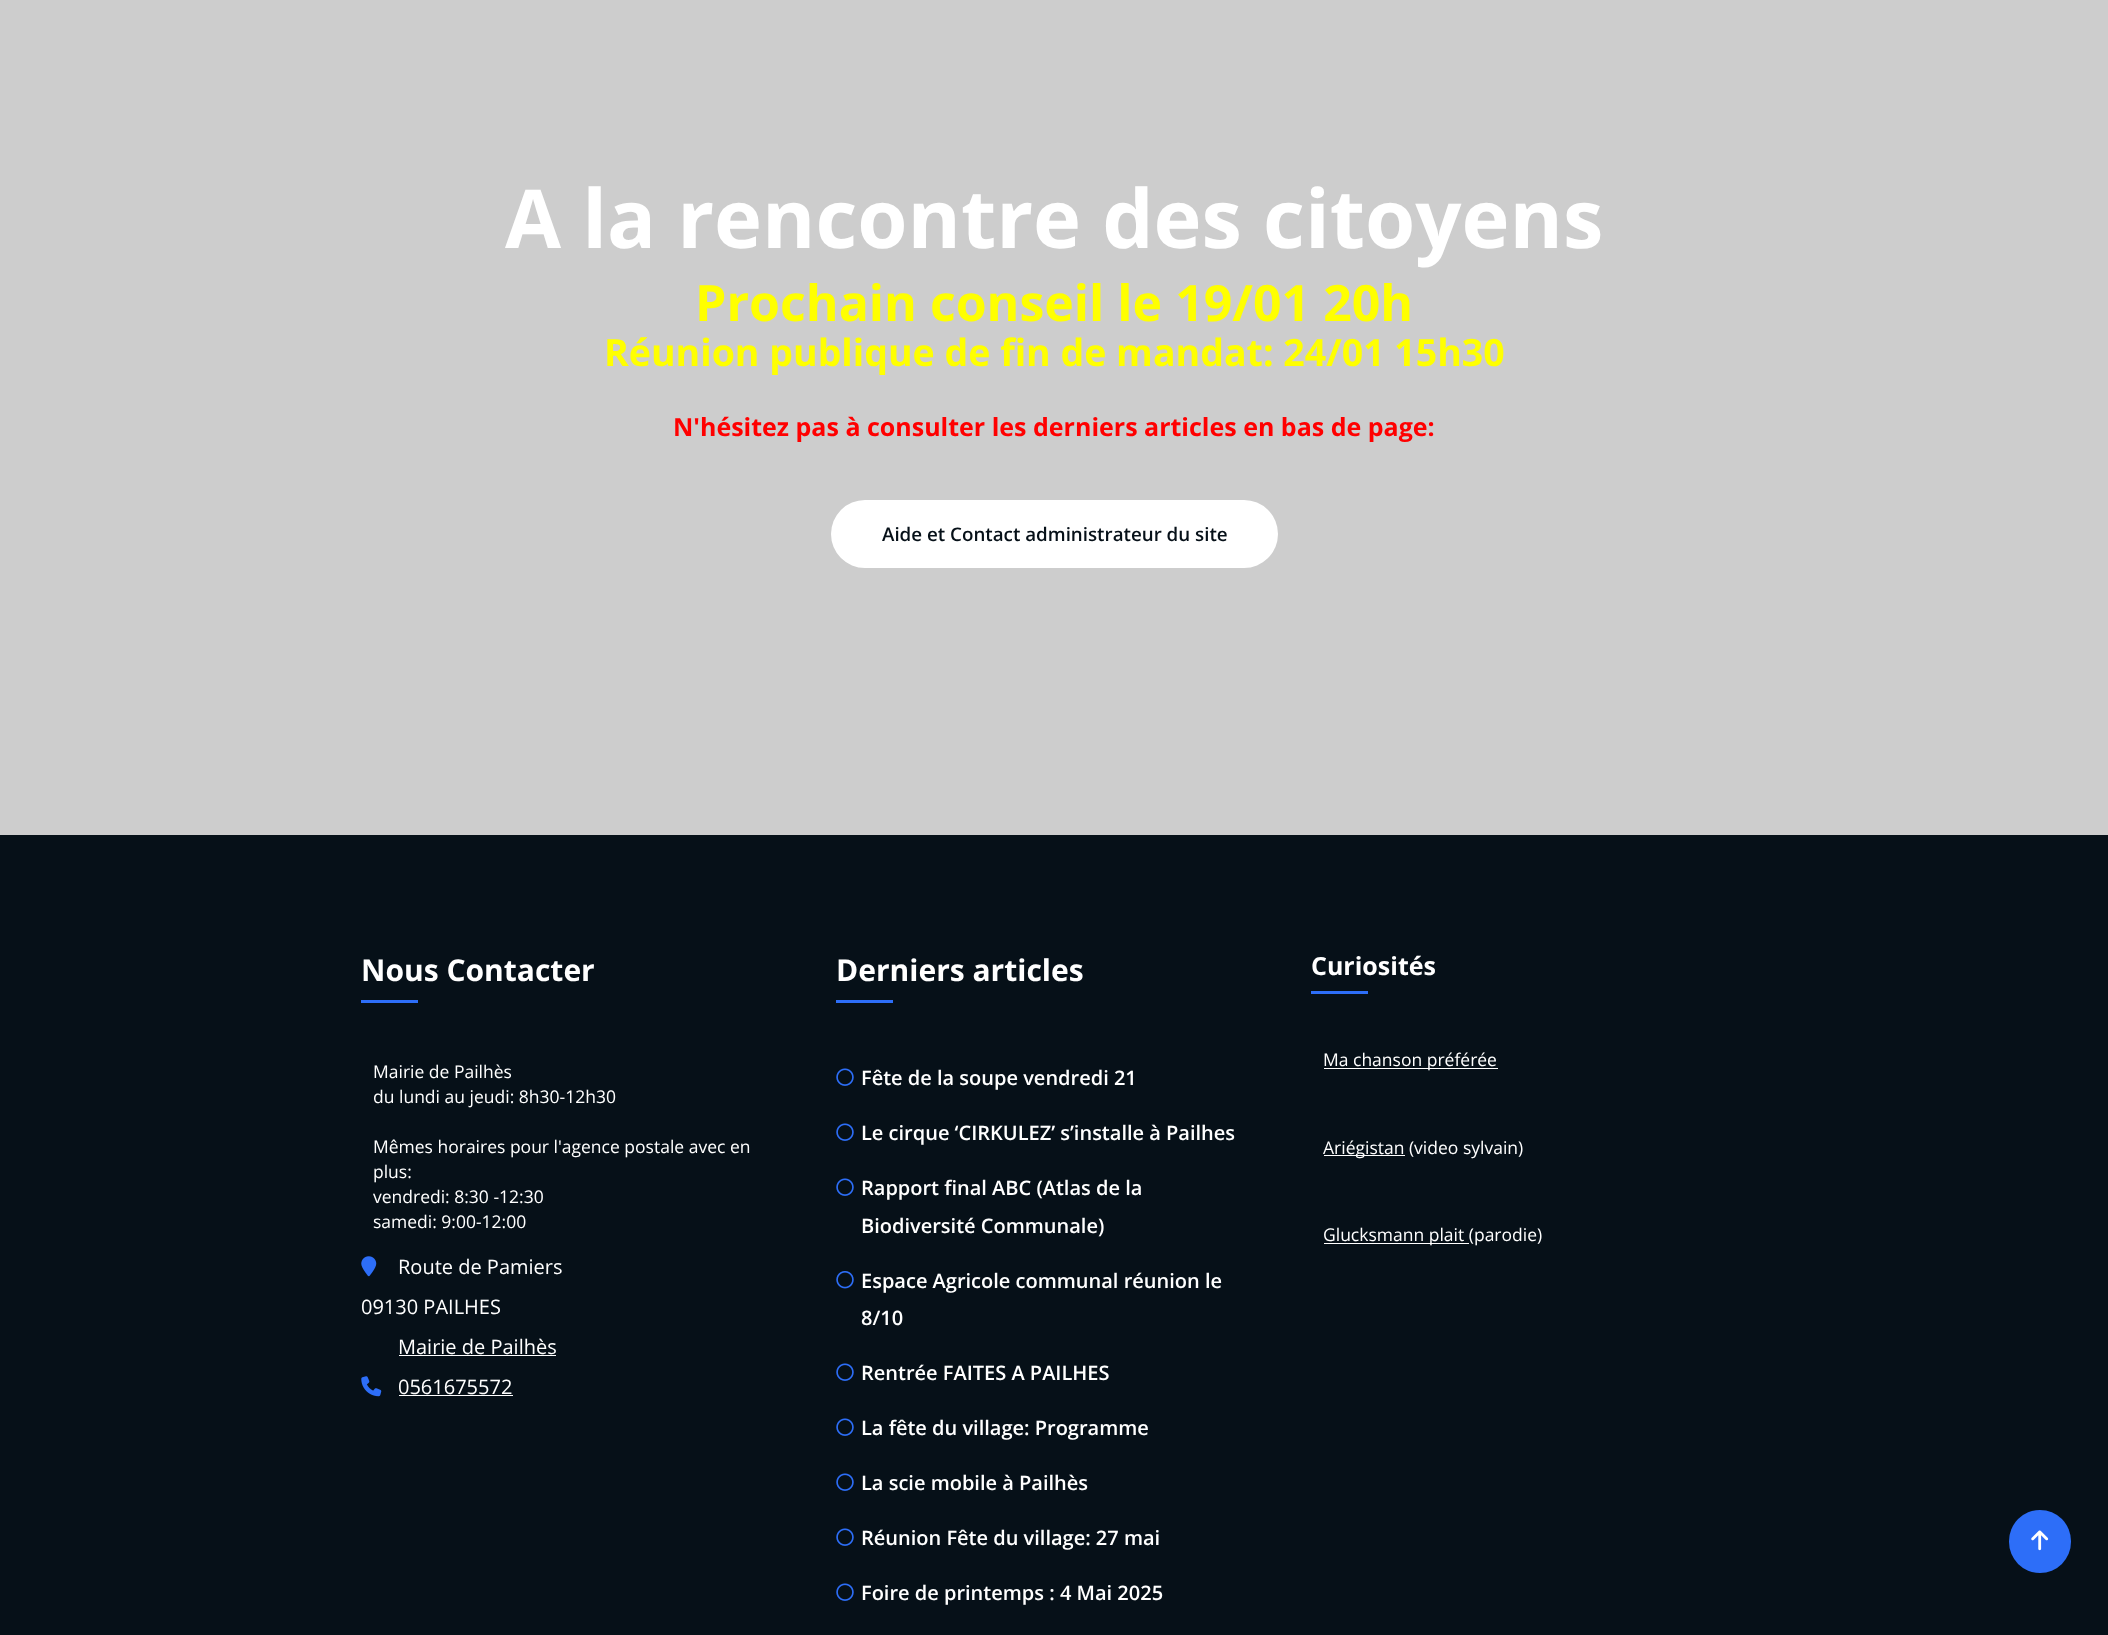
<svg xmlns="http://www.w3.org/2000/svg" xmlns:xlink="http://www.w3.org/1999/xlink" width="2108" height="1635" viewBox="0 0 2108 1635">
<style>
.cls-1{font:bold 81.25px Open Sans;fill:#ffffff}
.cls-2{font:bold 50px Open Sans;fill:#ffff00}
.cls-3{font:bold 37.5px Open Sans;fill:#ffff00}
.cls-4{font:bold 25px Open Sans;fill:#ff0000}
.cls-5{font:600 18.75px Open Sans;fill:#061018}
.cls-6{font:bold 30px Open Sans;fill:#ffffff}
.cls-7{font:17.5px Open Sans;fill:#ffffff}
.cls-8{font:20px Open Sans;fill:#ffffff}
.cls-9{font:600 20px Open Sans;fill:#ffffff}
.cls-10{font:bold 25px Open Sans;fill:#ffffff}
</style>
<rect width="100%" height="100%" fill="#cdcdcd"/>
<rect fill="#ffffff" x="831" y="500" width="447" height="68" rx="34"/>
<rect fill="#061018" x="0" y="835" width="2108" height="800"/>
<rect fill="#2d6ef8" x="361" y="1000" width="57" height="3"/>
<image xlink:href="image0.png" x="361" y="1256" width="16" height="21"/>
<rect fill="#ffffff" x="399" y="1355" width="157" height="1"/>
<image xlink:href="image1.png" x="361" y="1376" width="21" height="21"/>
<rect fill="#ffffff" x="399" y="1395" width="114" height="1"/>
<rect fill="#2d6ef8" x="836" y="1000" width="57" height="3"/>
<image xlink:href="image2.png" x="836" y="1068" width="18" height="18"/>
<image xlink:href="image2.png" x="836" y="1123" width="18" height="18"/>
<image xlink:href="image2.png" x="836" y="1178" width="18" height="18"/>
<image xlink:href="image3.png" x="836" y="1271" width="18" height="18"/>
<image xlink:href="image2.png" x="836" y="1363" width="18" height="18"/>
<image xlink:href="image2.png" x="836" y="1418" width="18" height="18"/>
<image xlink:href="image2.png" x="836" y="1473" width="18" height="18"/>
<image xlink:href="image2.png" x="836" y="1528" width="18" height="18"/>
<image xlink:href="image2.png" x="836" y="1583" width="18" height="18"/>
<rect fill="#2d6ef8" x="1311" y="991" width="57" height="3"/>
<rect fill="#ffffff" x="1324" y="1068" width="174" height="1"/>
<rect fill="#ffffff" x="1324" y="1155" width="81" height="1"/>
<rect fill="#ffffff" x="1324" y="1243" width="145" height="1"/>
<rect fill="#2d6ef8" x="2009" y="1510" width="62" height="63" rx="31"/>
<image xlink:href="image4.png" x="2031" y="1530" width="18" height="21"/>
<text class="cls-1" x="505" y="248">A la rencontre des citoyens</text>
<text class="cls-2" x="695" y="321">Prochain conseil le 19/01 20h</text>
<text class="cls-3" x="604" y="366">Réunion publique de fin de mandat: 24/01 15h30</text>
<text class="cls-4" x="673" y="436">N'hésitez pas à consulter les derniers articles en bas de page:</text>
<text class="cls-5" x="882" y="541">Aide et Contact administrateur du site</text>
<text class="cls-6" x="361" y="981">Nous Contacter</text>
<text class="cls-7"><tspan x="373" y="1078">Mairie de Pailhès</tspan><tspan x="373" y="1103">du lundi au jeudi: 8h30-12h30</tspan></text>
<text class="cls-7"><tspan x="373" y="1153">Mêmes horaires pour l'agence postale avec en</tspan><tspan x="373" y="1178">plus:</tspan><tspan x="373" y="1203">vendredi: 8:30 -12:30</tspan><tspan x="373" y="1228">samedi: 9:00-12:00</tspan></text>
<text class="cls-8" x="398" y="1274">Route de Pamiers</text>
<text class="cls-8" x="361" y="1314">09130 PAILHES</text>
<text class="cls-8" x="398" y="1354">Mairie de Pailhès</text>
<text class="cls-8" x="398" y="1394">0561675572</text>
<text class="cls-6" x="836" y="981">Derniers articles</text>
<text class="cls-9" x="861" y="1085">Fête de la soupe vendredi 21</text>
<text class="cls-9" x="861" y="1140">Le cirque ‘CIRKULEZ’ s’installe à Pailhes</text>
<text class="cls-9"><tspan x="861" y="1195">Rapport final ABC (Atlas de la</tspan><tspan x="861" y="1233">Biodiversité Communale)</tspan></text>
<text class="cls-9"><tspan x="861" y="1288">Espace Agricole communal réunion le</tspan><tspan x="861" y="1325">8/10</tspan></text>
<text class="cls-9" x="861" y="1380">Rentrée FAITES A PAILHES</text>
<text class="cls-9" x="861" y="1435">La fête du village: Programme</text>
<text class="cls-9" x="861" y="1490">La scie mobile à Pailhès</text>
<text class="cls-9" x="861" y="1545">Réunion Fête du village: 27 mai</text>
<text class="cls-9" x="861" y="1600">Foire de printemps : 4 Mai 2025</text>
<text class="cls-10" x="1311" y="975">Curiosités</text>
<text class="cls-7" x="1323" y="1066">Ma chanson préférée</text>
<text class="cls-7" x="1323" y="1154">Ariégistan (video sylvain)</text>
<text class="cls-7" x="1323" y="1241">Glucksmann plait (parodie)</text>
</svg>
